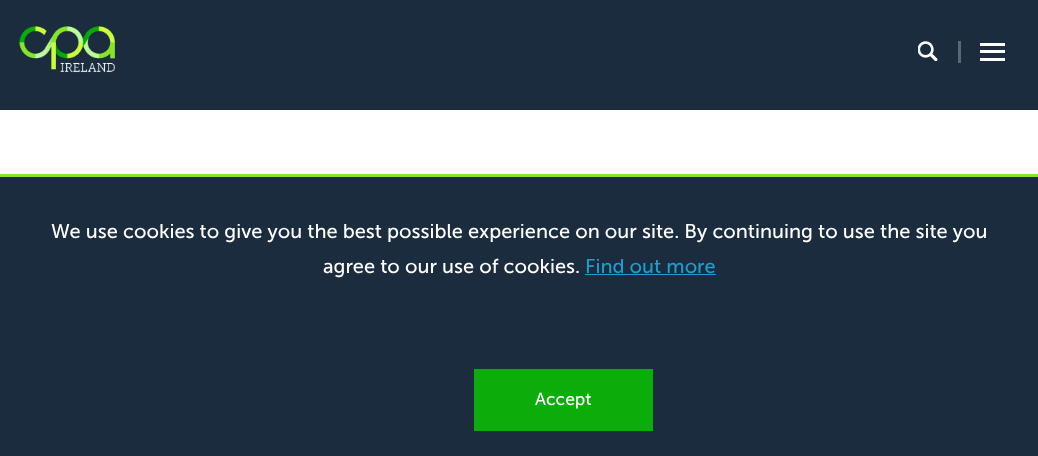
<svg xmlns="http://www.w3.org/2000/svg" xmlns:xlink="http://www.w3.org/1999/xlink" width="1038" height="456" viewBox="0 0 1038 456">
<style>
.cls-1{font:20px 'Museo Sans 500';fill:#ffffff}
.cls-2{font:20px 'Museo Sans 500';fill:#1d9ecd}
.cls-3{font:17.5px 'Museo Sans 500';fill:#ffffff}
</style>
<rect width="100%" height="100%" fill="#ffffff"/>
<rect fill="#1b2c3f" x="0" y="0" width="1038" height="110"/>
<image xlink:href="image0.png" x="19" y="26" width="96" height="47"/>
<image xlink:href="image1.png" x="918" y="41" width="20" height="20"/>
<rect fill="#5b6774" x="958" y="41" width="3" height="22"/>
<rect fill="#ffffff" x="980" y="50" width="25" height="3"/>
<rect fill="#ffffff" x="980" y="43" width="25" height="3"/>
<rect fill="#ffffff" x="980" y="58" width="25" height="3"/>
<rect fill="#1b2c3f" x="0" y="177" width="1038" height="279"/>
<rect fill="#85e529" x="0" y="174" width="1038" height="3"/>
<rect fill="#1d9ecd" x="585" y="274" width="131" height="1"/>
<rect fill="#0bad0b" x="474" y="369" width="179" height="62"/>
<text class="cls-1" x="51" y="238">We use cookies to give you the best possible experience on our site. By continuing to use the site you</text>
<text class="cls-1" x="323" y="273">agree to our use of cookies.</text>
<text class="cls-2" x="585" y="273">Find out more</text>
<text class="cls-3" x="535" y="405">Accept</text>
</svg>
